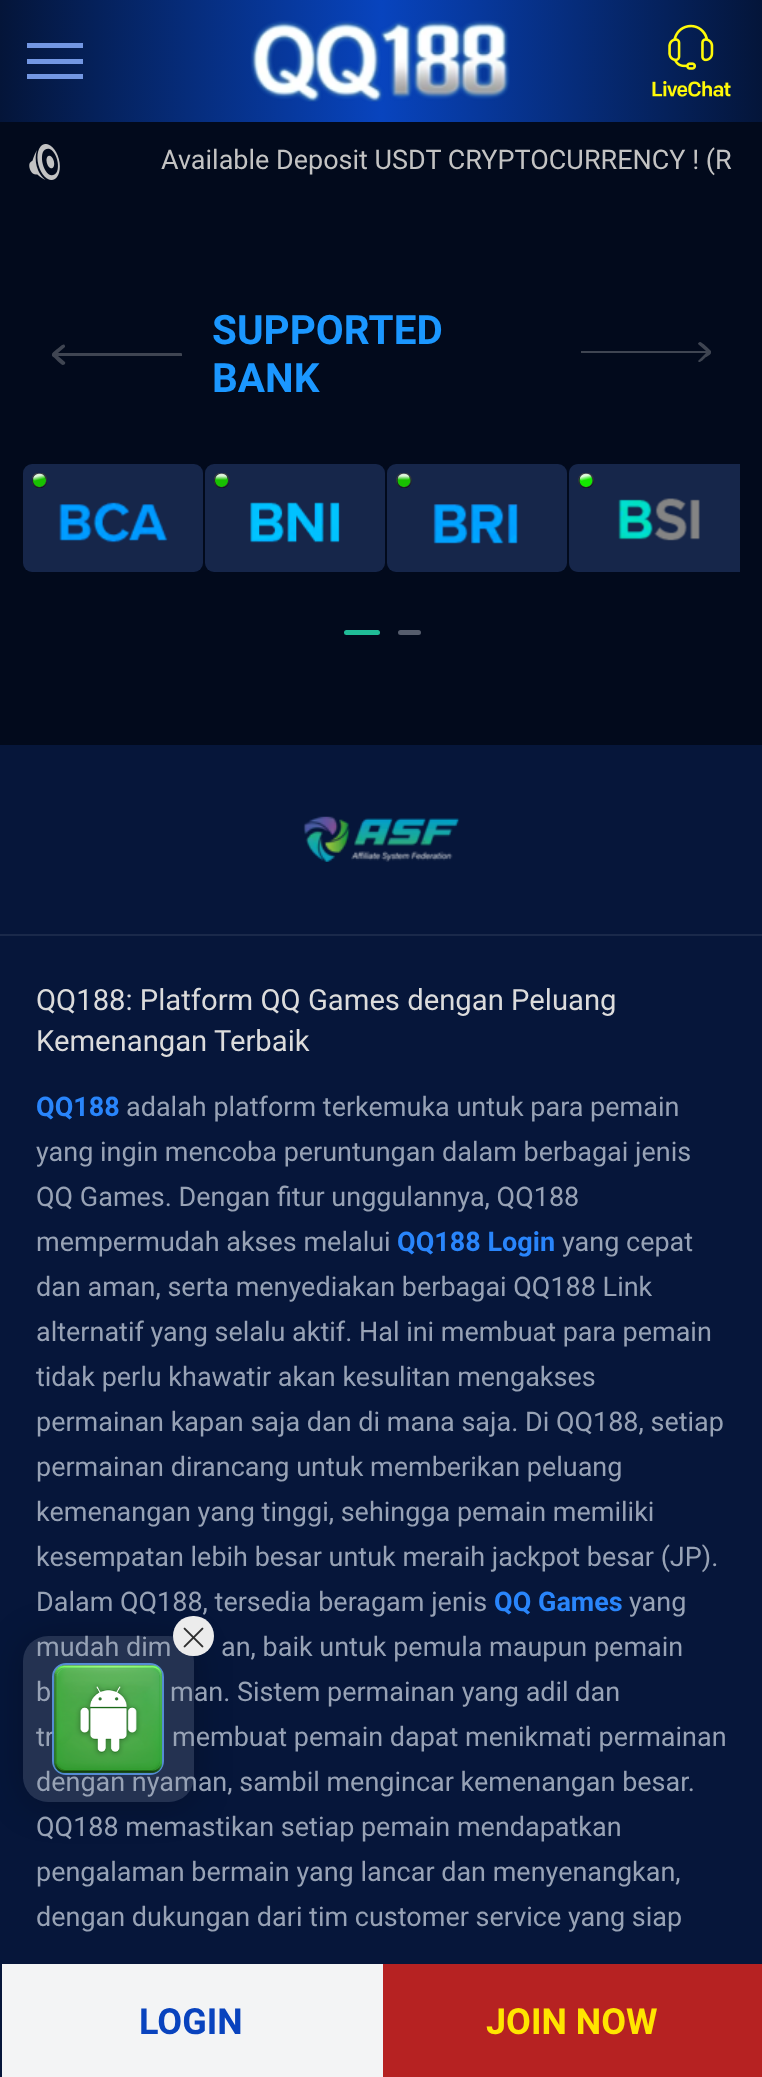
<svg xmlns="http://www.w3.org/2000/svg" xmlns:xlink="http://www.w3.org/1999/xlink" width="762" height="2077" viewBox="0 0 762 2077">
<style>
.cls-1{font:27px Roboto;fill:#c3c3c3}
.cls-2{font:bold 40.5px Roboto;fill:#1b97ff}
.cls-3{font:29.25px Roboto;fill:#dcdcdc}
.cls-4{font:bold 27px Roboto;fill:#2985fb}
.cls-5{font:27px Roboto;fill:#97a2b5}
.cls-6{font:bold 36px Roboto;fill:#0943be}
.cls-7{font:bold 36px Roboto;fill:#ffe500}
</style>
<defs>
<linearGradient id="g1" gradientUnits="userSpaceOnUse" x1="0" y1="61" x2="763" y2="61"><stop offset="0" stop-color="#041539"/><stop offset="0.5" stop-color="#0844be"/><stop offset="1" stop-color="#041539"/></linearGradient>
<clipPath id="clip1"><rect x="52" y="342" width="130" height="23"/></clipPath>
<clipPath id="clip2"><rect x="581" y="342" width="130" height="23"/></clipPath>
<clipPath id="clip3"><path d="M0 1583H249V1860H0ZM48 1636H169C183 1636 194 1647 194 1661V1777C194 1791 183 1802 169 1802H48C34 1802 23 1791 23 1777V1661C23 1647 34 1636 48 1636Z" clip-rule="evenodd"/></clipPath>
</defs>
<rect width="100%" height="100%" fill="#020a1c"/>
<rect fill="url(#g1)" x="0" y="0" width="762" height="122"/>
<rect fill="#7397e3" x="27" y="43" width="56" height="5"/>
<rect fill="#7397e3" x="27" y="59" width="56" height="5"/>
<rect fill="#7397e3" x="27" y="74" width="56" height="5"/>
<image xlink:href="image0.png" x="250" y="20" width="260" height="82"/>
<image xlink:href="image1.png" x="652" y="24" width="79" height="73"/>
<image xlink:href="image2.png" x="29" y="144" width="31" height="36"/>
<g clip-path="url(#clip1)">
<path fill="#3f4552" d="M52 356C54 357 61 365 63 365C64 365 66 364 65 362L58 356H182C183 355 183 355 183 354L181 353H58L65 347V346C64 342 60 347 57 349C56 350 50 354 52 356Z"/>
</g>
<g clip-path="url(#clip2)">
<path fill="#3f4552" d="M711 351C709 349 702 342 700 342C699 342 698 343 698 344L706 351H581C581 351 580 352 581 353H582H706L699 360L698 361C699 364 703 360 706 357C707 357 713 353 711 351Z"/>
</g>
<rect fill="#16264a" x="23" y="464" width="180" height="108" rx="9"/>
<image xlink:href="image3.png" x="32" y="473" width="15" height="15"/>
<image xlink:href="image4.png" x="59" y="502" width="109" height="41"/>
<rect fill="#16264a" x="205" y="464" width="180" height="108" rx="9"/>
<image xlink:href="image5.png" x="214" y="473" width="16" height="15"/>
<image xlink:href="image6.png" x="250" y="502" width="90" height="41"/>
<rect fill="#16264a" x="387" y="464" width="180" height="108" rx="9"/>
<image xlink:href="image7.png" x="396" y="473" width="16" height="15"/>
<image xlink:href="image8.png" x="433" y="504" width="85" height="40"/>
<path fill="#16264a" d="M578 464H740V572H578C573 572 569 568 569 563V473C569 468 573 464 578 464Z"/>
<image xlink:href="image9.png" x="578" y="473" width="16" height="15"/>
<image xlink:href="image10.png" x="618" y="498" width="82" height="43"/>
<rect fill="#20bc97" x="344" y="630" width="36" height="5" rx="2.5"/>
<rect fill="#565d6d" x="398" y="630" width="23" height="5" rx="2.5"/>
<rect fill="#06163a" x="0" y="745" width="762" height="1332"/>
<rect fill="#1a294a" x="0" y="934" width="762" height="2"/>
<image xlink:href="image11.png" x="303" y="816" width="157" height="46"/>
<rect fill="#f3f4f5" x="2" y="1964" width="381" height="113"/>
<rect fill="#b62222" x="383" y="1964" width="379" height="113"/>
<g clip-path="url(#clip3)">
<rect fill="#000000" fill-opacity="0.24" filter="blur(18px)" x="23" y="1638" width="171" height="167" rx="25"/>
</g>
<rect fill="#ffffff" fill-opacity="0.12" x="23" y="1636" width="171" height="166" rx="25"/>
<text class="cls-1" x="161" y="169">Available Deposit USDT CRYPTOCURRENCY ! (R</text>
<text class="cls-2"><tspan x="212" y="344">SUPPORTED</tspan><tspan x="212" y="392">BANK</tspan></text>
<text class="cls-3"><tspan x="36" y="1010">QQ188: Platform QQ Games dengan Peluang</tspan><tspan x="36" y="1051">Kemenangan Terbaik</tspan></text>
<text class="cls-4" x="36" y="1116">QQ188</text>
<text class="cls-5" x="126" y="1116">adalah platform terkemuka untuk para pemain</text>
<text class="cls-5"><tspan x="36" y="1161">yang ingin mencoba peruntungan dalam berbagai jenis</tspan><tspan x="36" y="1206">QQ Games. Dengan fitur unggulannya, QQ188</tspan><tspan x="36" y="1251">mempermudah akses melalui</tspan></text>
<text class="cls-4" x="397" y="1251">QQ188 Login</text>
<text class="cls-5" x="562" y="1251">yang cepat</text>
<text class="cls-5"><tspan x="36" y="1296">dan aman, serta menyediakan berbagai QQ188 Link</tspan><tspan x="36" y="1341">alternatif yang selalu aktif. Hal ini membuat para pemain</tspan><tspan x="36" y="1386">tidak perlu khawatir akan kesulitan mengakses</tspan><tspan x="36" y="1431">permainan kapan saja dan di mana saja. Di QQ188, setiap</tspan><tspan x="36" y="1476">permainan dirancang untuk memberikan peluang</tspan><tspan x="36" y="1521">kemenangan yang tinggi, sehingga pemain memiliki</tspan><tspan x="36" y="1566">kesempatan lebih besar untuk meraih jackpot besar (JP).</tspan><tspan x="36" y="1611">Dalam QQ188, tersedia beragam jenis</tspan></text>
<text class="cls-4" x="494" y="1611">QQ Games</text>
<text class="cls-5" x="629" y="1611">yang</text>
<text class="cls-5" x="36" y="1656">mudah dim</text>
<text class="cls-5" x="221" y="1656">an, baik untuk pemula maupun pemain</text>
<text class="cls-5" x="36" y="1701">b</text>
<text class="cls-5" x="170" y="1701">man. Sistem permainan yang adil dan</text>
<text class="cls-5" x="36" y="1746">tr</text>
<text class="cls-5" x="172" y="1746">membuat pemain dapat menikmati permainan</text>
<text class="cls-5"><tspan x="36" y="1791">dengan nyaman, sambil mengincar kemenangan besar.</tspan><tspan x="36" y="1836">QQ188 memastikan setiap pemain mendapatkan</tspan><tspan x="36" y="1881">pengalaman bermain yang lancar dan menyenangkan,</tspan><tspan x="36" y="1926">dengan dukungan dari tim customer service yang siap</tspan></text>
<text class="cls-6" x="139" y="2034">LOGIN</text>
<text class="cls-7" x="486" y="2034">JOIN NOW</text>
<rect fill="#ececec" x="173" y="1616" width="41" height="40" rx="20"/>
<image xlink:href="image12.png" x="183" y="1627" width="21" height="21"/>
<rect fill="#01111c" fill-opacity="0.5" x="52" y="1663" width="112" height="112" rx="14"/>
<rect fill="none" stroke="#67a7fa" stroke-opacity="0.8" stroke-width="2" x="53" y="1664" width="110" height="110" rx="13"/>
<image xlink:href="image13.png" x="54" y="1665" width="108" height="108"/>
</svg>
